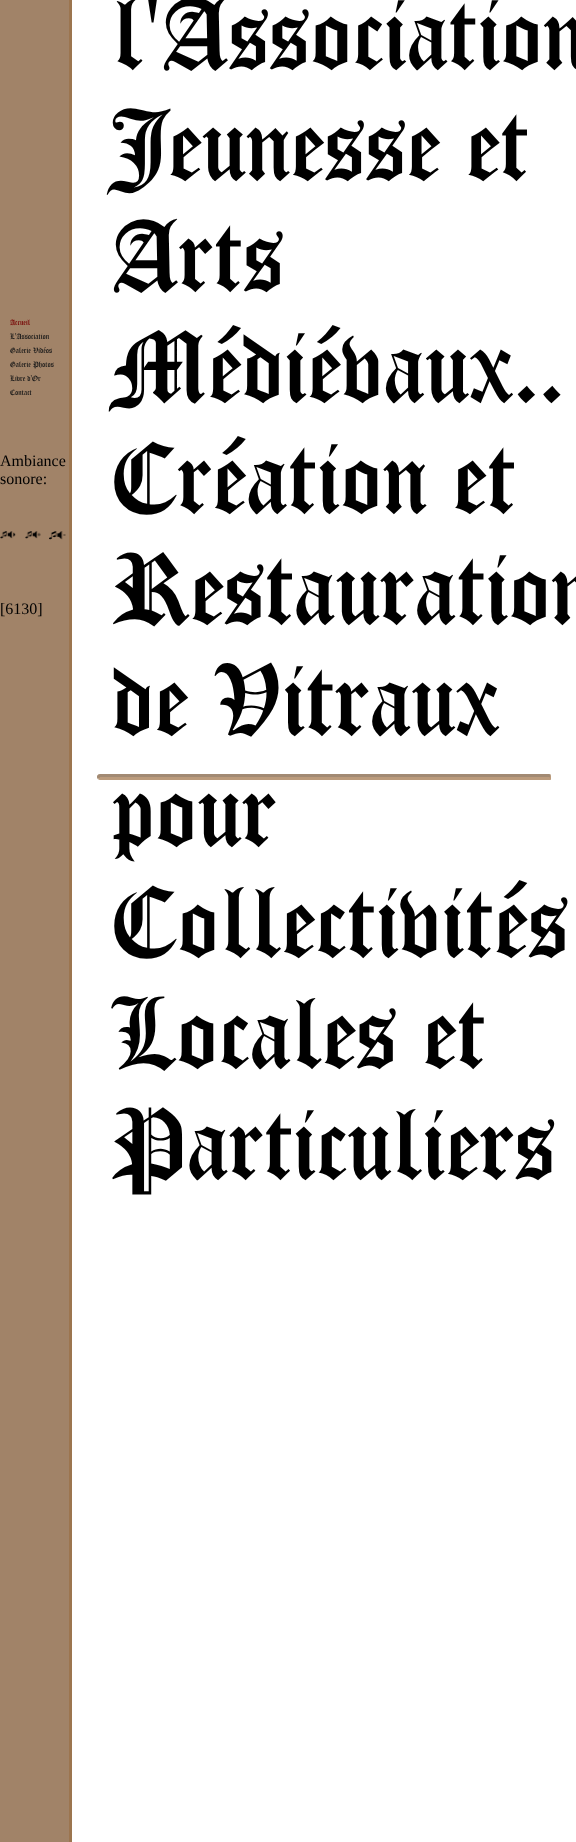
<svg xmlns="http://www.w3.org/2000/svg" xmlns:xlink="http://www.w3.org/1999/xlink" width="576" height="1842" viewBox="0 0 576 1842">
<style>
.cls-1{font:900 8.5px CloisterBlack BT;fill:#760001}
.cls-2{font:900 8.5px CloisterBlack BT;fill:#181818}
.cls-3{font:16px Liberation Serif;fill:#000000}
.cls-4{font:900 110.5px CloisterBlack BT;fill:#000000}
</style>
<defs>
<clipPath id="clip1"><rect x="97" y="774" width="454" height="1063"/></clipPath>
</defs>
<rect width="100%" height="100%" fill="#ffffff"/>
<rect fill="#a18368" x="0" y="0" width="69" height="1842"/>
<rect fill="#9c754f" x="69" y="0" width="3" height="1842"/>
<image xlink:href="image0.png" x="0" y="531" width="16" height="8"/>
<image xlink:href="image1.png" x="25" y="531" width="16" height="8"/>
<image xlink:href="image2.png" x="49" y="531" width="17" height="9"/>
<g clip-path="url(#clip1)">
<rect fill="#e0d1c2" x="97" y="774" width="455" height="6" rx="3"/>
<path fill="none" stroke="#966636" stroke-opacity="0.5" stroke-width="3" d="M550 776C551 777 550.5 778.5 549 778.5H100L99 778"/>
</g>
<path fill="none" stroke="#644424" stroke-opacity="0.5" stroke-width="3" d="M99 778C98 777 98.5 775.5 100 775.5H549L550 776"/>
<text class="cls-1" x="10" y="325">Accueil</text>
<text class="cls-2"><tspan x="10" y="339">L'Association</tspan><tspan x="10" y="353">Galerie Vidéos</tspan><tspan x="10" y="367">Galerie Photos</tspan><tspan x="10" y="381">Livre d'Or</tspan><tspan x="10" y="395">Contact</tspan></text>
<text class="cls-3"><tspan x="0" y="466">Ambiance</tspan><tspan x="0" y="484">sonore:</tspan></text>
<text class="cls-3" x="0" y="614">[6130]</text>
<text class="cls-4"><tspan x="112" y="69">l'Association</tspan><tspan x="112" y="180">Jeunesse et</tspan><tspan x="112" y="291">Arts</tspan><tspan x="112" y="402">Médiévaux..</tspan><tspan x="112" y="513">Création et</tspan><tspan x="112" y="624">Restauration</tspan><tspan x="112" y="735">de Vitraux</tspan><tspan x="112" y="846">pour</tspan><tspan x="112" y="957">Collectivités</tspan><tspan x="112" y="1068">Locales et</tspan><tspan x="112" y="1179">Particuliers</tspan></text>
</svg>
